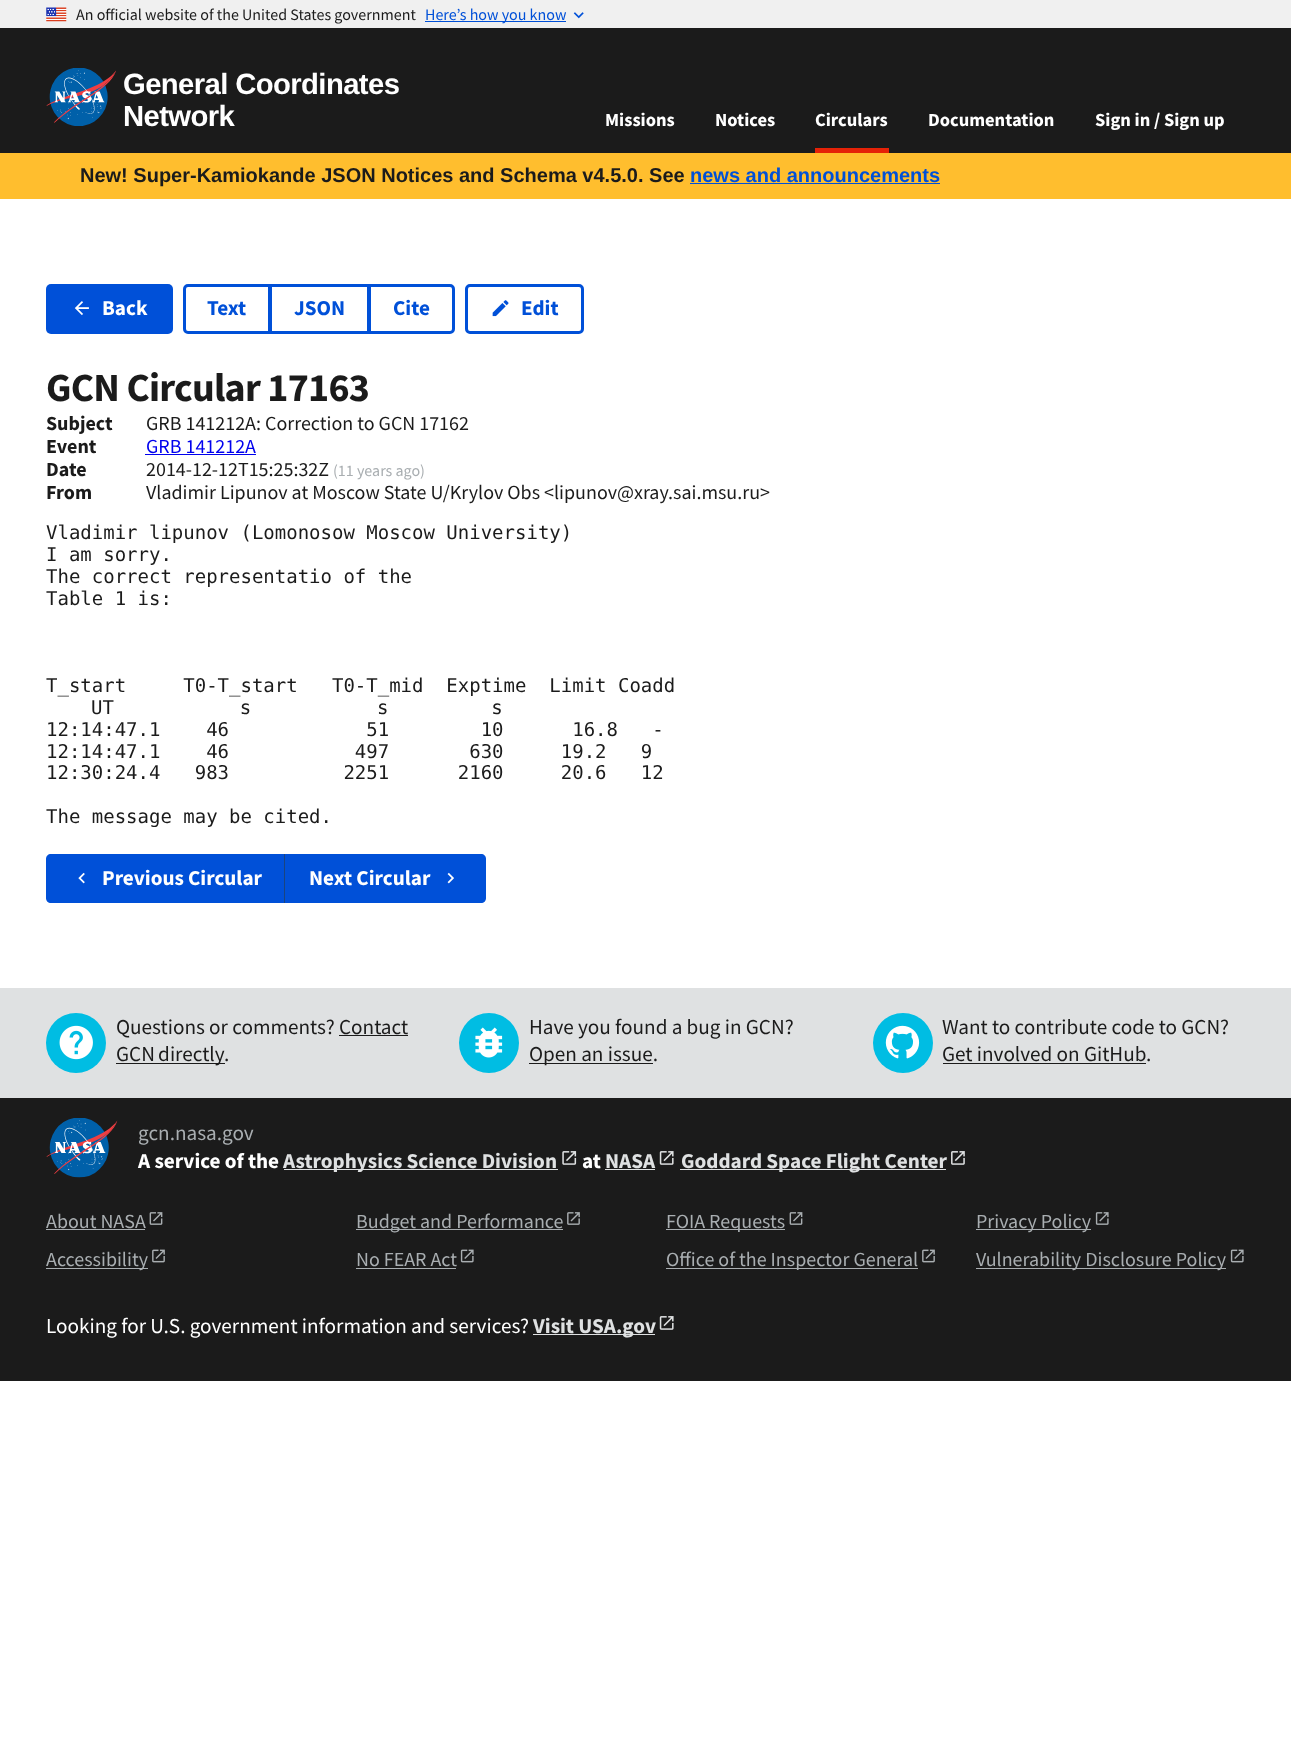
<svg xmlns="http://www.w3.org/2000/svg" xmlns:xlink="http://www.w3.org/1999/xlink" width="1291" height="1743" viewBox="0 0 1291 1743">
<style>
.cls-1{font:16px Source Sans Pro;fill:#1b1b1b}
.cls-2{font:16px Source Sans Pro;fill:#0050d8}
.cls-3{font:bold 29.25px Liberation Sans;letter-spacing:-0.6px;fill:#ffffff}
.cls-4{font:bold 18.5px Source Sans Pro;fill:#ffffff}
.cls-5{font:bold 20px Liberation Sans;fill:#1b1b1b}
.cls-6{font:bold 20px Liberation Sans;fill:#0050d8}
.cls-7{font:bold 21.2px Source Sans Pro;fill:#ffffff}
.cls-8{font:bold 21.2px Source Sans Pro;fill:#0050d8}
.cls-9{font:bold 40px Source Sans Pro;letter-spacing:-0.75px;fill:#1b1b1b}
.cls-10{font:bold 20px Source Sans Pro;fill:#1b1b1b}
.cls-11{font:20px Source Sans Pro;fill:#1b1b1b}
.cls-12{font:20px Source Sans Pro;fill:#0000ee}
.cls-13{font:16px Source Sans Pro;fill:#a9aeb1}
.cls-14{font:19px DejaVu Sans Mono;fill:#1b1b1b}
.cls-15{font:21.2px Source Sans Pro;fill:#1b1b1b}
.cls-16{font:21.2px Source Sans Pro;fill:#a9aeb1}
.cls-17{font:bold 21.2px Source Sans Pro;fill:#dfe1e2}
.cls-18{font:20px Source Sans Pro;fill:#a9aeb1}
.cls-19{font:21.2px Source Sans Pro;fill:#ffffff}
</style>
<rect width="100%" height="100%" fill="#ffffff"/>
<rect fill="#f0f0f0" x="0" y="0" width="1291" height="28"/>
<image xlink:href="image0.png" x="46" y="7" width="21" height="15"/>
<rect fill="#0050d8" x="425" y="21" width="141" height="1"/>
<image xlink:href="image1.png" x="573" y="12" width="11" height="7"/>
<rect fill="#1b1b1b" x="0" y="28" width="1291" height="125"/>
<image xlink:href="image2.png" x="46" y="68" width="70" height="58"/>
<rect fill="#e52207" x="815" y="148" width="74" height="5"/>
<rect fill="#ffbe2e" x="0" y="153" width="1291" height="46"/>
<rect fill="#0050d8" x="690" y="183" width="250" height="1"/>
<rect fill="#0050d8" x="46" y="284" width="127" height="50" rx="5"/>
<image xlink:href="image3.png" x="74" y="301" width="15" height="15"/>
<path fill="none" stroke="#0050d8" stroke-width="3" d="M188 285.5H269.5V332.5H188C186 332.5 184.5 331 184.5 329V289C184.5 287 186 285.5 188 285.5Z"/>
<rect fill="none" stroke="#0050d8" stroke-width="3" x="270.5" y="285.5" width="98" height="47"/>
<path fill="none" stroke="#0050d8" stroke-width="3" d="M369.5 285.5H450C452 285.5 453.5 287 453.5 289V329C453.5 331 452 332.5 450 332.5H369.5Z"/>
<rect fill="none" stroke="#0050d8" stroke-width="3" x="466.5" y="285.5" width="116" height="47" rx="3.5"/>
<image xlink:href="image4.png" x="492" y="300" width="17" height="17"/>
<rect fill="#0000ee" x="145" y="454" width="111" height="1"/>
<path fill="#0050d8" d="M51 854H286V903H51C48 903 46 901 46 898V859C46 856 48 854 51 854Z"/>
<image xlink:href="image5.png" x="78" y="872" width="7" height="12"/>
<path fill="#0050d8" d="M284 854H481C484 854 486 856 486 859V898C486 901 484 903 481 903H284Z"/>
<rect fill="#1a4480" x="284" y="854" width="1" height="49"/>
<image xlink:href="image6.png" x="447" y="872" width="7" height="12"/>
<rect fill="#1b1b1b" x="0" y="1098" width="1291" height="283"/>
<rect fill="#dfe1e2" x="0" y="988" width="1291" height="110"/>
<circle fill="#00bde3" cx="76" cy="1043" r="30"/>
<image xlink:href="image7.png" x="59" y="1025" width="34" height="35"/>
<rect fill="#1b1b1b" x="339" y="1035" width="69" height="1"/>
<rect fill="#1b1b1b" x="116" y="1063" width="109" height="1"/>
<circle fill="#00bde3" cx="489" cy="1043" r="30"/>
<image xlink:href="image8.png" x="475" y="1027" width="28" height="31"/>
<rect fill="#1b1b1b" x="529" y="1063" width="124" height="1"/>
<circle fill="#00bde3" cx="903" cy="1043" r="30"/>
<image xlink:href="image9.png" x="885" y="1025" width="35" height="34"/>
<rect fill="#1b1b1b" x="943" y="1063" width="203" height="1"/>
<image xlink:href="image10.png" x="46" y="1118" width="72" height="60"/>
<rect fill="#dfe1e2" x="284" y="1169" width="274" height="1"/>
<image xlink:href="image11.png" x="562" y="1151" width="15" height="14"/>
<rect fill="#dfe1e2" x="605" y="1169" width="50" height="1"/>
<image xlink:href="image12.png" x="659" y="1151" width="15" height="14"/>
<rect fill="#dfe1e2" x="680" y="1169" width="266" height="1"/>
<image xlink:href="image13.png" x="951" y="1151" width="14" height="14"/>
<rect fill="#a9aeb1" x="46" y="1229" width="99" height="1"/>
<image xlink:href="image14.png" x="149" y="1212" width="14" height="13"/>
<rect fill="#a9aeb1" x="356" y="1229" width="207" height="1"/>
<image xlink:href="image15.png" x="567" y="1212" width="13" height="13"/>
<rect fill="#a9aeb1" x="666" y="1229" width="119" height="1"/>
<image xlink:href="image14.png" x="789" y="1212" width="14" height="13"/>
<rect fill="#a9aeb1" x="976" y="1229" width="115" height="1"/>
<image xlink:href="image16.png" x="1095" y="1212" width="14" height="13"/>
<rect fill="#a9aeb1" x="46" y="1268" width="102" height="1"/>
<image xlink:href="image17.png" x="152" y="1249" width="13" height="14"/>
<rect fill="#a9aeb1" x="356" y="1268" width="100" height="1"/>
<image xlink:href="image18.png" x="460" y="1249" width="14" height="14"/>
<rect fill="#a9aeb1" x="666" y="1268" width="252" height="1"/>
<image xlink:href="image17.png" x="922" y="1249" width="13" height="14"/>
<rect fill="#a9aeb1" x="976" y="1268" width="250" height="1"/>
<image xlink:href="image18.png" x="1230" y="1249" width="14" height="14"/>
<rect fill="#dfe1e2" x="533" y="1334" width="122" height="1"/>
<image xlink:href="image12.png" x="659" y="1316" width="15" height="14"/>
<text class="cls-1" x="76" y="20">An official website of the United States government</text>
<text class="cls-2" x="425" y="20">Here’s how you know</text>
<text class="cls-3"><tspan x="123" y="94">General Coordinates</tspan><tspan x="123" y="126">Network</tspan></text>
<text class="cls-4" x="605" y="126">Missions</text>
<text class="cls-4" x="715" y="126">Notices</text>
<text class="cls-4" x="815" y="126">Circulars</text>
<text class="cls-4" x="928" y="126">Documentation</text>
<text class="cls-4" x="1095" y="126">Sign in / Sign up</text>
<text class="cls-5" x="80" y="182">New! Super-Kamiokande JSON Notices and Schema v4.5.0. See</text>
<text class="cls-6" x="690" y="182">news and announcements</text>
<text class="cls-7" x="102" y="315">Back</text>
<text class="cls-8" x="207" y="315">Text</text>
<text class="cls-8" x="294" y="315">JSON</text>
<text class="cls-8" x="393" y="315">Cite</text>
<text class="cls-8" x="521" y="315">Edit</text>
<text class="cls-9" x="46" y="401">GCN Circular 17163</text>
<text class="cls-10" x="46" y="430">Subject</text>
<text class="cls-11" x="146" y="430">GRB 141212A: Correction to GCN 17162</text>
<text class="cls-10" x="46" y="453">Event</text>
<text class="cls-12" x="146" y="453">GRB 141212A</text>
<text class="cls-10" x="46" y="476">Date</text>
<text class="cls-11" x="146" y="476">2014-12-12T15:25:32Z</text>
<text class="cls-13" x="333" y="476">(11 years ago)</text>
<text class="cls-10" x="46" y="499">From</text>
<text class="cls-11" x="146" y="499">Vladimir Lipunov at Moscow State U/Krylov Obs &lt;lipunov@xray.sai.msu.ru&gt;</text>
<text class="cls-14"><tspan x="46" y="539">Vladimir lipunov (Lomonosow Moscow University)</tspan><tspan x="46" y="561">I am sorry.</tspan><tspan x="46" y="583">The correct representatio of the</tspan><tspan x="46" y="605">Table 1 is:</tspan></text>
<text class="cls-14" xml:space="preserve" x="46" y="692">T_start     T0-T_start   T0-T_mid  Exptime  Limit Coadd</text>
<text class="cls-14" xml:space="preserve" x="91" y="714">UT           s           s         s</text>
<text class="cls-14" xml:space="preserve"><tspan x="46" y="736">12:14:47.1    46            51        10      16.8   -</tspan><tspan x="46" y="758">12:14:47.1    46           497       630     19.2   9</tspan><tspan x="46" y="779">12:30:24.4   983          2251      2160     20.6   12</tspan></text>
<text class="cls-14" x="46" y="823">The message may be cited.</text>
<text class="cls-7" x="102" y="885">Previous Circular</text>
<text class="cls-7" x="309" y="885">Next Circular</text>
<text class="cls-15"><tspan x="116" y="1034">Questions or comments? Contact</tspan><tspan x="116" y="1061" word-spacing="-1">GCN directly</tspan></text>
<text class="cls-15" x="224" y="1061">.</text>
<text class="cls-15"><tspan x="529" y="1034">Have you found a bug in GCN?</tspan><tspan x="529" y="1061">Open an issue.</tspan></text>
<text class="cls-15"><tspan x="942" y="1034">Want to contribute code to GCN?</tspan><tspan x="942" y="1061">Get involved on GitHub</tspan></text>
<text class="cls-15" x="1146" y="1061">.</text>
<text class="cls-16" x="138" y="1140">gcn.nasa.gov</text>
<text class="cls-7" x="138" y="1168">A service of the</text>
<text class="cls-17" x="283" y="1168">Astrophysics Science Division</text>
<text class="cls-7" x="582" y="1168">at</text>
<text class="cls-17" x="605" y="1168">NASA</text>
<text class="cls-17" x="681" y="1168">Goddard Space Flight Center</text>
<text class="cls-18" x="46" y="1228">About NASA</text>
<text class="cls-18" x="356" y="1228">Budget and Performance</text>
<text class="cls-18" x="666" y="1228">FOIA Requests</text>
<text class="cls-18" x="976" y="1228">Privacy Policy</text>
<text class="cls-18" x="46" y="1266">Accessibility</text>
<text class="cls-18" x="356" y="1266">No FEAR Act</text>
<text class="cls-18" x="666" y="1266">Office of the Inspector General</text>
<text class="cls-18" x="976" y="1266">Vulnerability Disclosure Policy</text>
<text class="cls-19" x="46" y="1333">Looking for U.S. government information and services?</text>
<text class="cls-17" x="533" y="1333">Visit USA.gov</text>
</svg>
